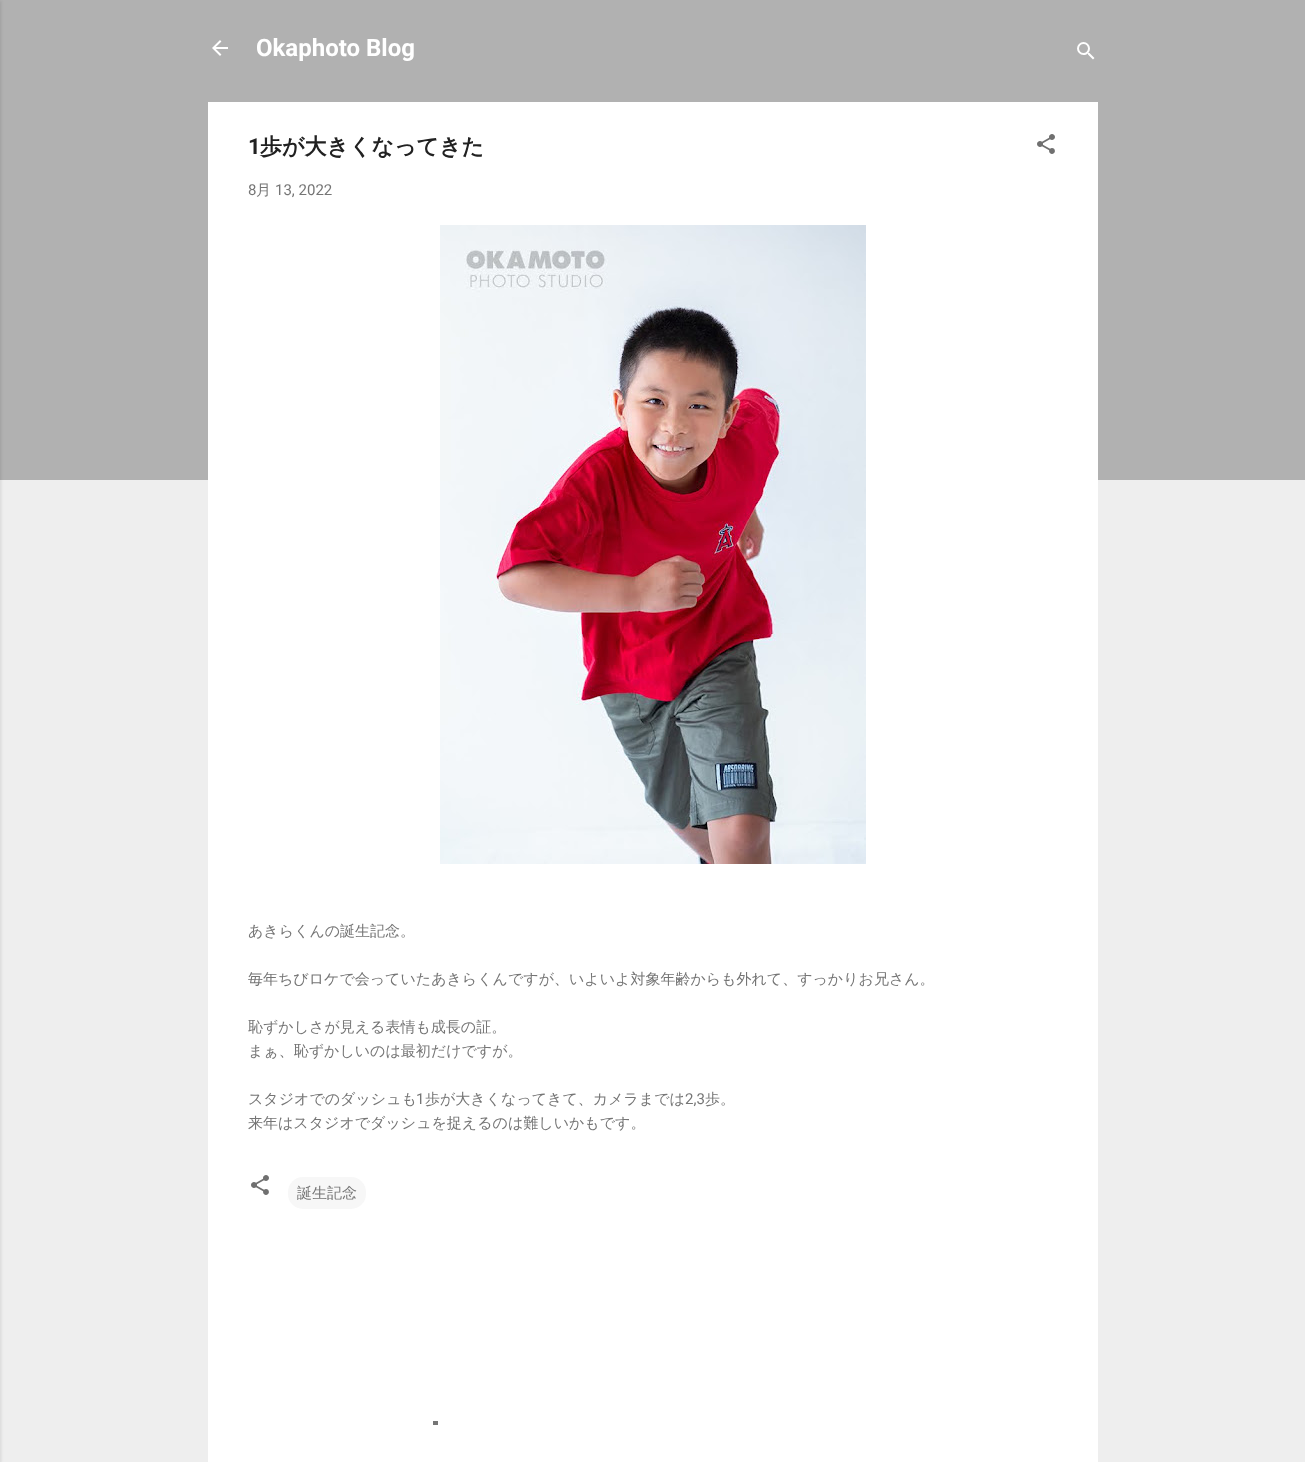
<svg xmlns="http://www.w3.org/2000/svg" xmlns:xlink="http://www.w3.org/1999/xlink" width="1305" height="1462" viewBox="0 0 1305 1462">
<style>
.cls-1{font:bold 24px Roboto;fill:#ffffff}
.cls-2{font:bold 22px Roboto;fill:#212121}
.cls-3{font:bold 22px WenQuanYi Zen Hei;fill:#212121}
.cls-4{font:15px Roboto;fill:#757575}
.cls-5{font:500 15px WenQuanYi Zen Hei;fill:#757575}
</style>
<rect width="100%" height="100%" fill="#eeeeee"/>
<rect fill="#b1b1b1" x="0" y="0" width="1305" height="480"/>
<rect fill="#000000" fill-opacity="0.1" filter="blur(1.5px)" x="-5" y="1" width="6" height="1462"/>
<image xlink:href="image0.png" x="212" y="40" width="16" height="16"/>
<image xlink:href="image1.png" x="1077" y="42" width="18" height="18"/>
<rect fill="#ffffff" x="208" y="102" width="890" height="1360"/>
<image xlink:href="image2.png" x="1037" y="134" width="18" height="20"/>
<image xlink:href="image3.png" x="440" y="225" width="426" height="639"/>
<image xlink:href="image4.png" x="251" y="1175" width="18" height="20"/>
<rect fill="#f7f7f7" x="288" y="1177" width="78" height="32" rx="15"/>
<rect fill="#757575" x="433" y="1421" width="5" height="4"/>
<text class="cls-1" x="256" y="56">Okaphoto Blog</text>
<text class="cls-2" x="248" y="154">1</text>
<text class="cls-3" x="260" y="154">歩が大きくなってきた</text>
<text class="cls-4" x="248" y="195">8</text>
<text class="cls-5" x="256" y="195">月</text>
<text class="cls-4" x="275" y="195">13, 2022</text>
<text class="cls-5" x="248" y="936">あきらくんの誕生記念。</text>
<text class="cls-5" x="248" y="984">毎年ちびロケで会っていたあきらくんですが、いよいよ対象年齢からも外れて、すっかりお兄さん。</text>
<text class="cls-5"><tspan x="248" y="1032">恥ずかしさが見える表情も成長の証。</tspan><tspan x="248" y="1056">まぁ、恥ずかしいのは最初だけですが。</tspan></text>
<text class="cls-5" x="248" y="1104">スタジオでのダッシュも</text>
<text class="cls-4" x="416" y="1104">1</text>
<text class="cls-5" x="425" y="1104">歩が大きくなってきて、カメラまでは</text>
<text class="cls-4" x="685" y="1104">2,3</text>
<text class="cls-5" x="705" y="1104">歩。</text>
<text class="cls-5" x="248" y="1128">来年はスタジオでダッシュを捉えるのは難しいかもです。</text>
<text class="cls-5" x="297" y="1198">誕生記念</text>
</svg>
